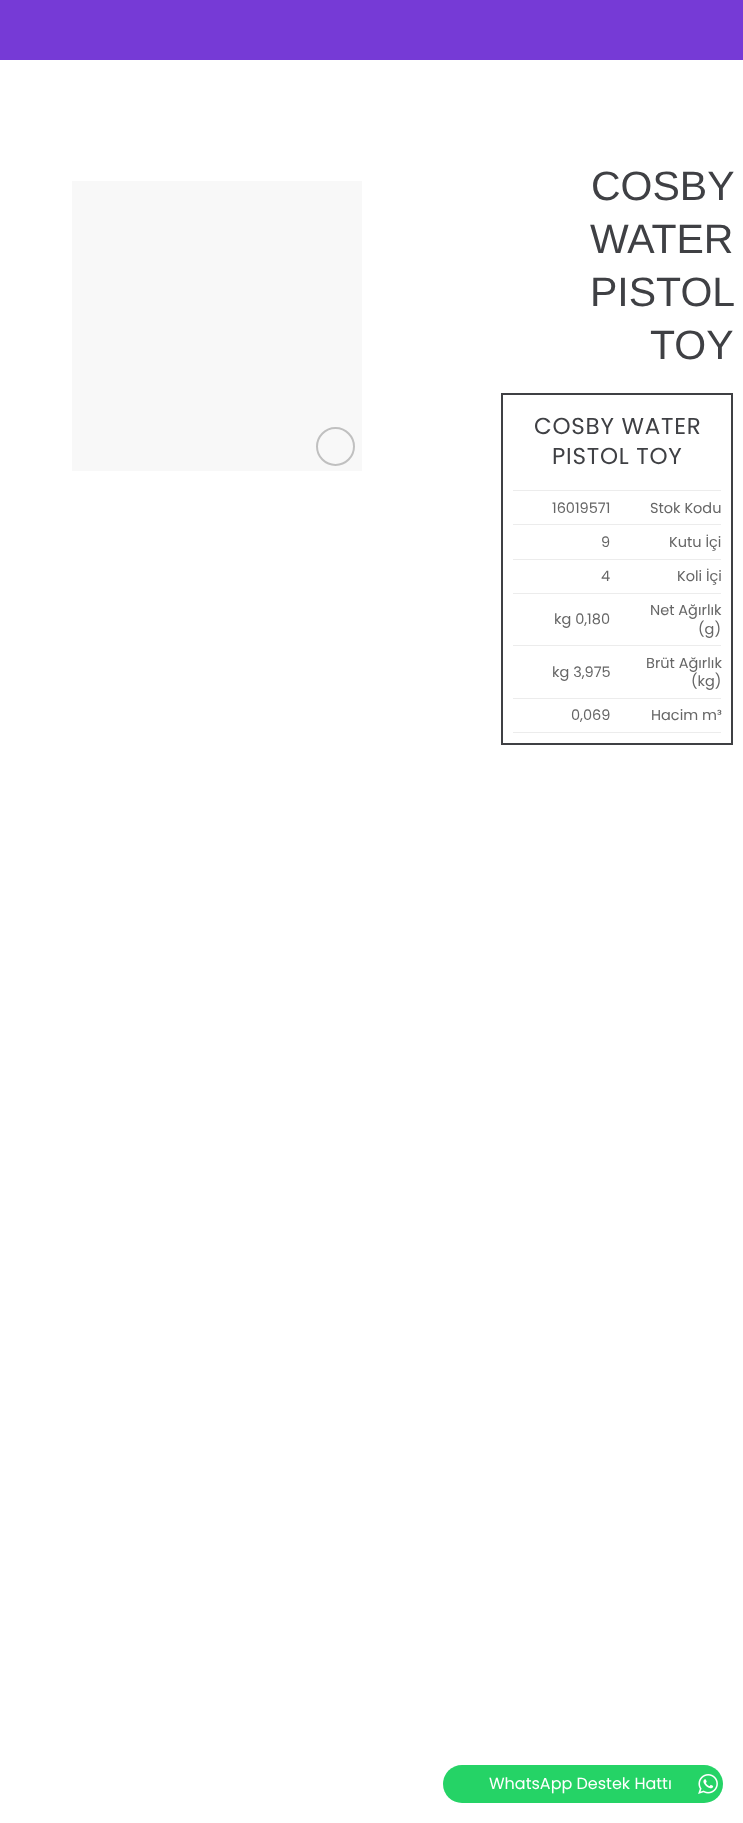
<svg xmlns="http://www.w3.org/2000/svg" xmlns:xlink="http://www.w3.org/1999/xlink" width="743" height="1823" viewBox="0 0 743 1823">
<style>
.cls-1{font:41px Liberation Sans;fill:#3f4044}
.cls-2{font:23px Poppins;letter-spacing:0.75px;fill:#3f4044}
.cls-3{font:14.5px Poppins;fill:#666666}
.cls-4{font:16px Poppins;fill:#ffffff}
</style>
<rect width="100%" height="100%" fill="#ffffff"/>
<rect fill="#763ad6" x="0" y="0" width="743" height="60"/>
<rect fill="#f8f8f8" x="72" y="181" width="290" height="290"/>
<circle fill="none" stroke="#c0c0c0" stroke-width="2" cx="335.5" cy="446.5" r="18.5"/>
<rect fill="none" stroke="#3f4044" stroke-width="2" x="502" y="394" width="230" height="350"/>
<rect fill="#ececec" x="513" y="490" width="208" height="1"/>
<rect fill="#ececec" x="513" y="524" width="208" height="1"/>
<rect fill="#ececec" x="513" y="559" width="208" height="1"/>
<rect fill="#ececec" x="513" y="593" width="208" height="1"/>
<rect fill="#ececec" x="513" y="645" width="208" height="1"/>
<rect fill="#ececec" x="513" y="698" width="208" height="1"/>
<rect fill="#ececec" x="513" y="732" width="208" height="1"/>
<rect fill="#25d366" x="443" y="1765" width="280" height="38" rx="19"/>
<image xlink:href="image0.png" x="698" y="1774" width="20" height="20"/>
<text class="cls-1" x="591" y="200">COSBY</text>
<text class="cls-1"><tspan x="590" y="253">WATER</tspan><tspan x="590" y="306">PISTOL</tspan></text>
<text class="cls-1" x="650" y="359">TOY</text>
<text class="cls-2" x="534" y="434">COSBY WATER</text>
<text class="cls-2" x="552" y="464">PISTOL TOY</text>
<text class="cls-3" x="552" y="513">16019571</text>
<text class="cls-3" x="650" y="513">Stok Kodu</text>
<text class="cls-3" x="601" y="547">9</text>
<text class="cls-3" x="669" y="547">Kutu İçi</text>
<text class="cls-3" x="601" y="581">4</text>
<text class="cls-3" x="677" y="581">Koli İçi</text>
<text class="cls-3" x="554" y="624">kg 0,180</text>
<text class="cls-3" x="650" y="615">Net Ağırlık</text>
<text class="cls-3" x="698" y="634">(g)</text>
<text class="cls-3" x="552" y="677">kg 3,975</text>
<text class="cls-3" x="646" y="668">Brüt Ağırlık</text>
<text class="cls-3" x="691" y="686">(kg)</text>
<text class="cls-3" x="571" y="720">0,069</text>
<text class="cls-3" x="651" y="720">Hacim m³</text>
<text class="cls-4" x="489" y="1789">WhatsApp Destek Hattı</text>
</svg>
